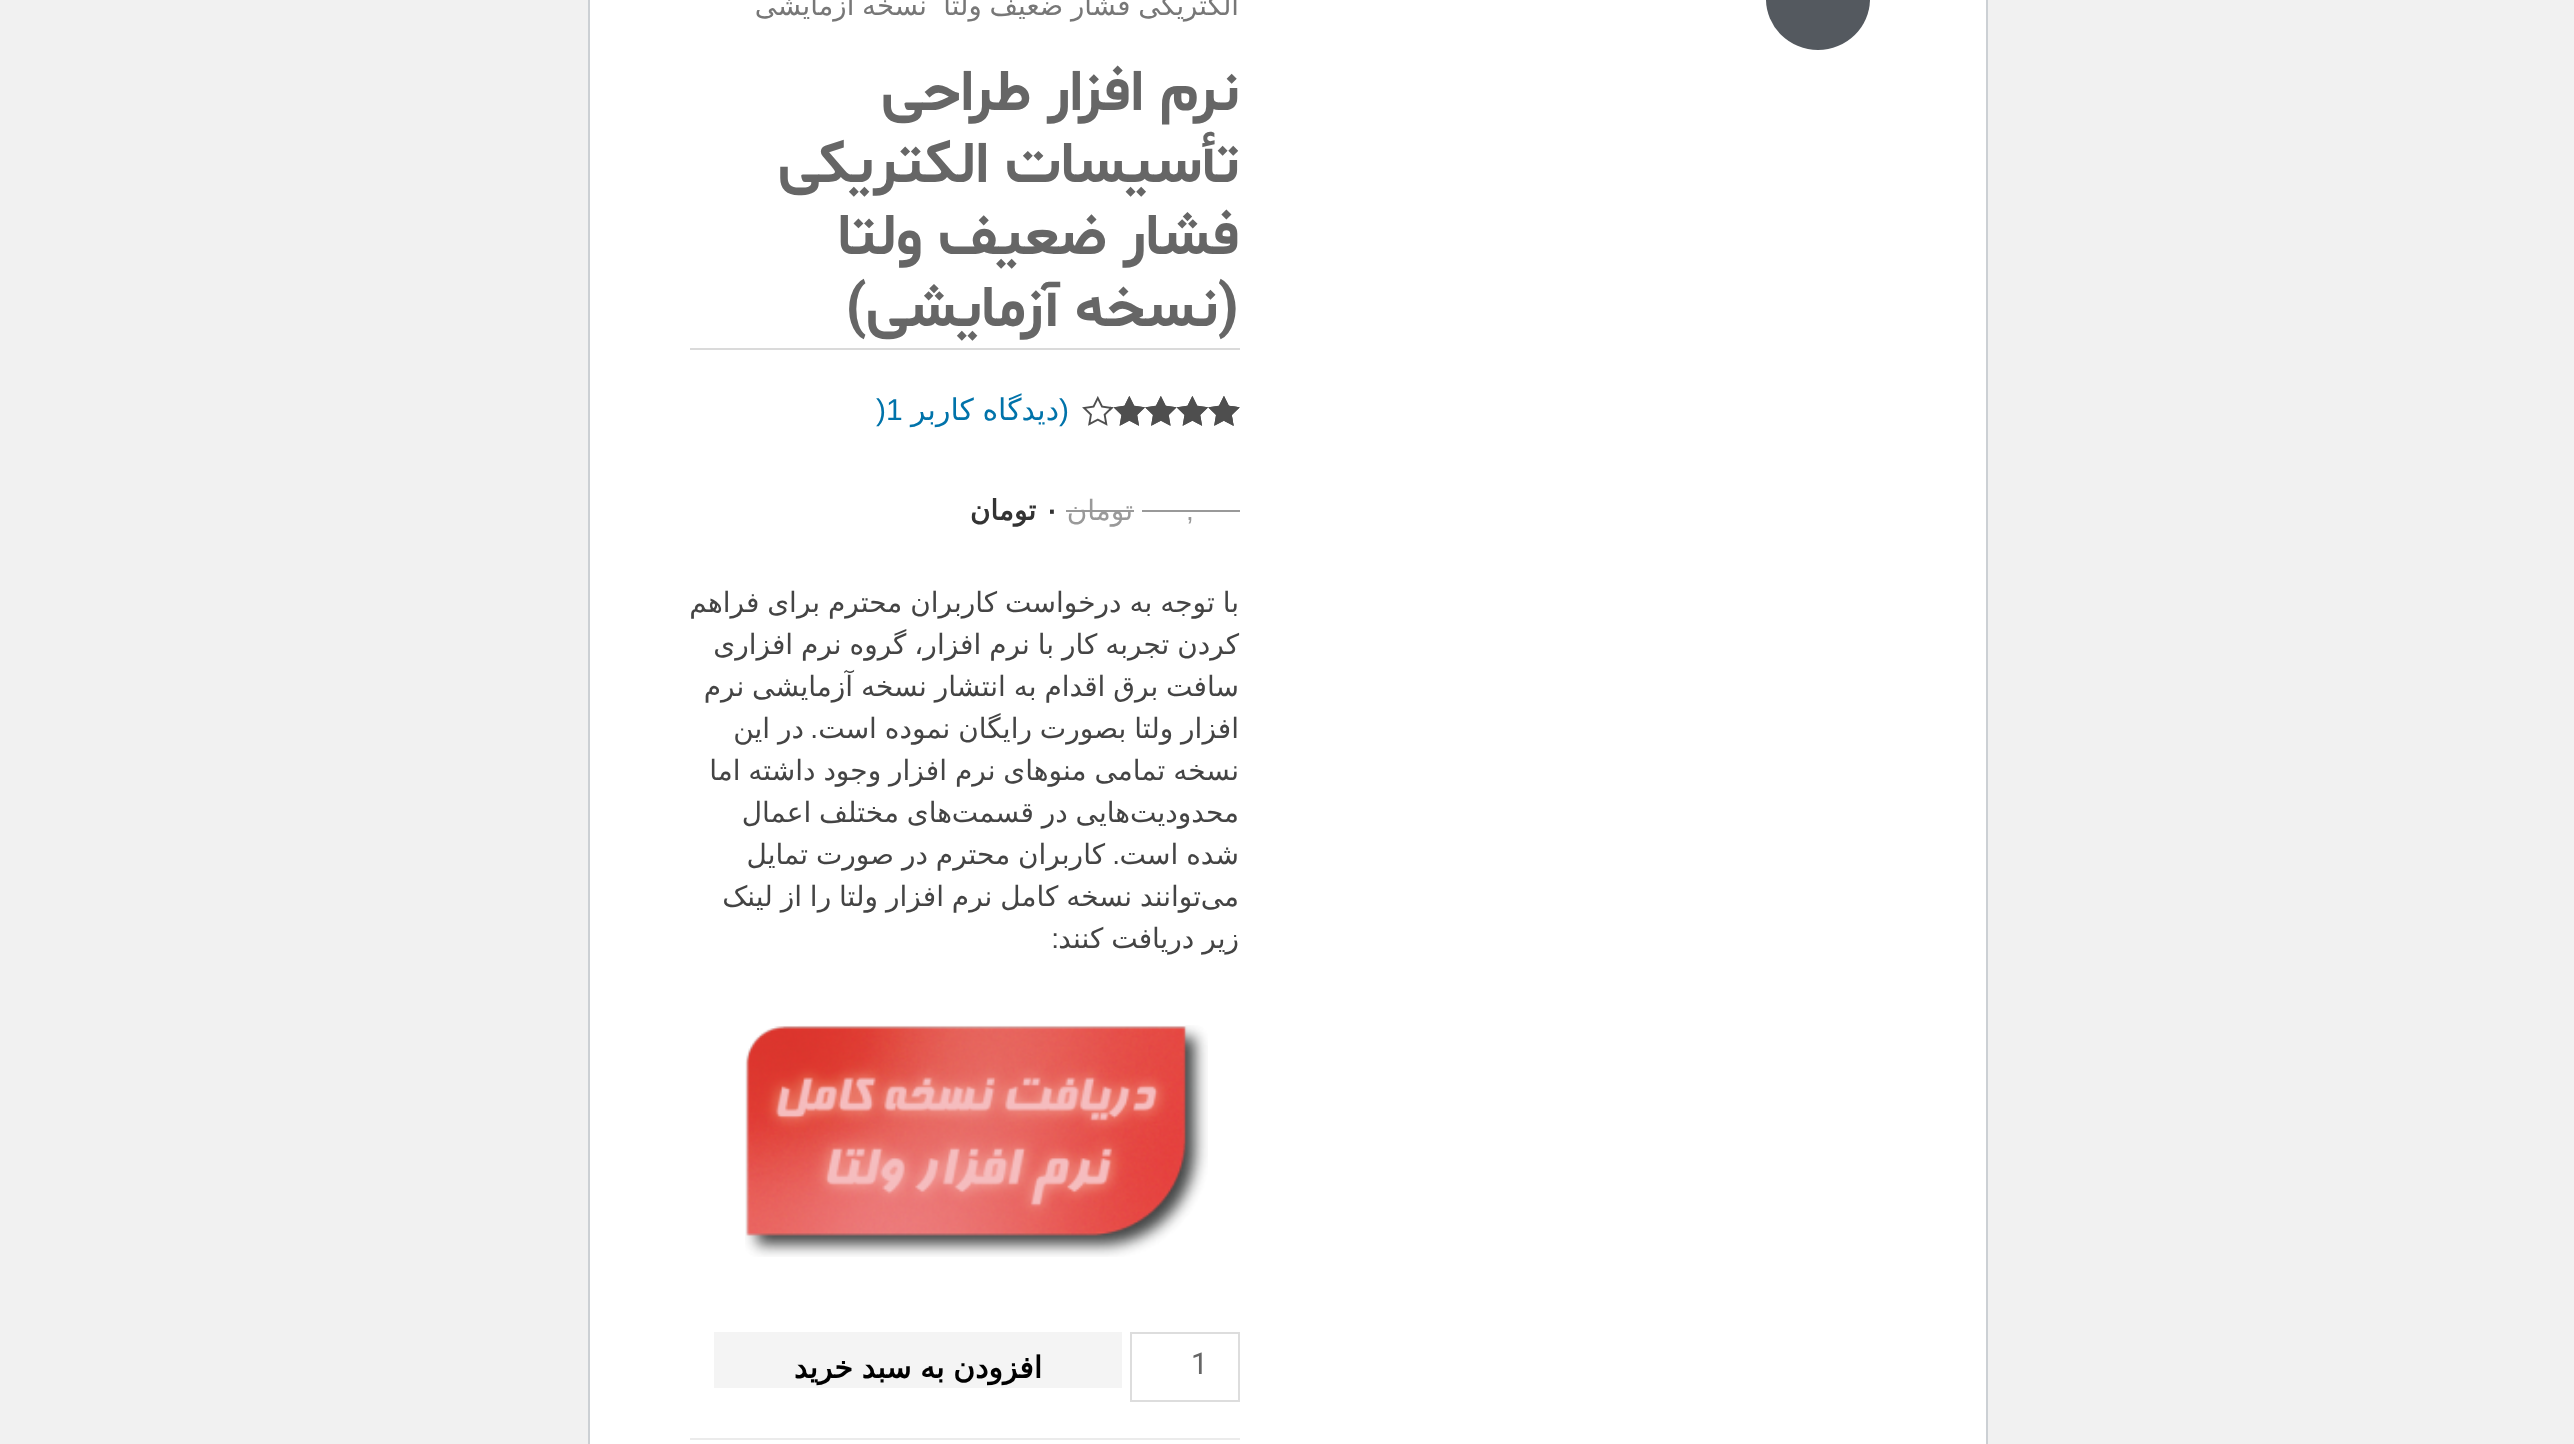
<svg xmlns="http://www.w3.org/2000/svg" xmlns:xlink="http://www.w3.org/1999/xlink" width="2574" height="1444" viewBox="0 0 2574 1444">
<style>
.cls-1{font:27.6px DejaVu Sans;direction:rtl;fill:#777777}
.cls-2{font:bold 60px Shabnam;direction:rtl;fill:#666666}
.cls-3{font:30px Liberation Sans;direction:rtl;fill:#0073aa}
.cls-4{font:30px DejaVu Sans;direction:rtl;fill:#0073aa}
.cls-5{font:30px Liberation Sans;fill:#0073aa}
.cls-6{font:28px Liberation Sans;fill:#999999}
.cls-7{font:28px DejaVu Sans;direction:rtl;fill:#999999}
.cls-8{font:bold 28px DejaVu Sans;fill:#333333}
.cls-9{font:bold 28px DejaVu Sans;direction:rtl;fill:#333333}
.cls-10{font:28px DejaVu Sans;direction:rtl;fill:#444444}
.cls-11{font:28px Liberation Sans;direction:rtl;fill:#444444}
.cls-12{font:30px Shabnam;fill:#666666}
.cls-13{font:bold 30px DejaVu Sans;direction:rtl;fill:#000000}
</style>
<rect width="100%" height="100%" fill="#f1f1f1"/>
<rect fill="#ffffff" stroke="#ccd0d4" stroke-width="2" x="589" y="-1" width="1398" height="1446"/>
<rect fill="#54595f" x="1766" y="-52" width="104" height="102" rx="52"/>
<rect fill="#dadada" x="690" y="348" width="550" height="2"/>
<image xlink:href="image0.png" x="1082" y="396" width="158" height="30"/>
<image xlink:href="image1.png" x="1110" y="396" width="130" height="30"/>
<image xlink:href="image2.png" x="1224" y="396" width="16" height="30"/>
<rect fill="#999999" x="1142" y="510" width="98" height="2"/>
<rect fill="#999999" x="1066" y="510" width="68" height="2"/>
<image xlink:href="image3.png" x="745" y="1025" width="463" height="232"/>
<rect fill="none" stroke="#dddddd" stroke-width="2" x="1131" y="1333" width="108" height="68"/>
<rect fill="#f4f4f4" x="714" y="1332" width="408" height="56"/>
<rect fill="#ebebeb" x="690" y="1438" width="550" height="2"/>
<text class="cls-1" x="1239" y="15" word-spacing="-1">الکتریکی فشار ضعیف ولتا</text>
<text class="cls-1" x="927" y="15" word-spacing="-1">نسخه آزمایشی</text>
<text class="cls-2"><tspan x="1239" y="110">نرم افزار طراحی</tspan><tspan x="1239" y="182">تأسیسات الکتریکی</tspan><tspan x="1239" y="254">فشار ضعیف ولتا</tspan><tspan x="1239" y="326">(نسخه آزمایشی)</tspan></text>
<text class="cls-3" x="1069" y="420">(</text>
<text class="cls-4" x="1059" y="420" word-spacing="-1">دیدگاه کاربر</text>
<text class="cls-5" x="886" y="420">1</text>
<text class="cls-5" x="876" y="420">)</text>
<text class="cls-6" x="1186" y="520">,</text>
<text class="cls-7" x="1133" y="520">تومان</text>
<text class="cls-8" x="1044" y="520">۰</text>
<text class="cls-9" x="1036" y="520">تومان</text>
<text class="cls-10"><tspan x="1239" y="612" word-spacing="-1">با توجه به درخواست کاربران محترم برای فراهم</tspan><tspan x="1239" y="654" word-spacing="-1">کردن تجربه کار با نرم افزار، گروه نرم افزاری</tspan><tspan x="1239" y="696" word-spacing="-1">سافت برق اقدام به انتشار نسخه آزمایشی نرم</tspan><tspan x="1239" y="738" word-spacing="-1">افزار ولتا بصورت رایگان نموده است</tspan></text>
<text class="cls-11" x="818" y="738">.</text>
<text class="cls-10" x="804" y="738" word-spacing="-1">در این</text>
<text class="cls-10"><tspan x="1239" y="780" word-spacing="-1">نسخه تمامی منوهای نرم افزار وجود داشته اما</tspan><tspan x="1239" y="822">محدودیت</tspan></text>
<text class="cls-10" x="1130" y="822" word-spacing="-1">هایی در قسمت</text>
<text class="cls-10" x="952" y="822" word-spacing="-1">های مختلف اعمال</text>
<text class="cls-10" x="1239" y="864" word-spacing="-1">شده است</text>
<text class="cls-11" x="1120" y="864">.</text>
<text class="cls-10" x="1105" y="864" word-spacing="-1">کاربران محترم در صورت تمایل</text>
<text class="cls-10" x="1239" y="906">می</text>
<text class="cls-10" x="1201" y="906" word-spacing="-1">توانند نسخه کامل نرم افزار ولتا را از لینک</text>
<text class="cls-10" x="1239" y="948" word-spacing="-1">زیر دریافت کنند</text>
<text class="cls-11" x="1059" y="948">:</text>
<text class="cls-12" x="1191" y="1374">1</text>
<text class="cls-13" x="1042" y="1378" word-spacing="-1">افزودن به سبد خرید</text>
</svg>
